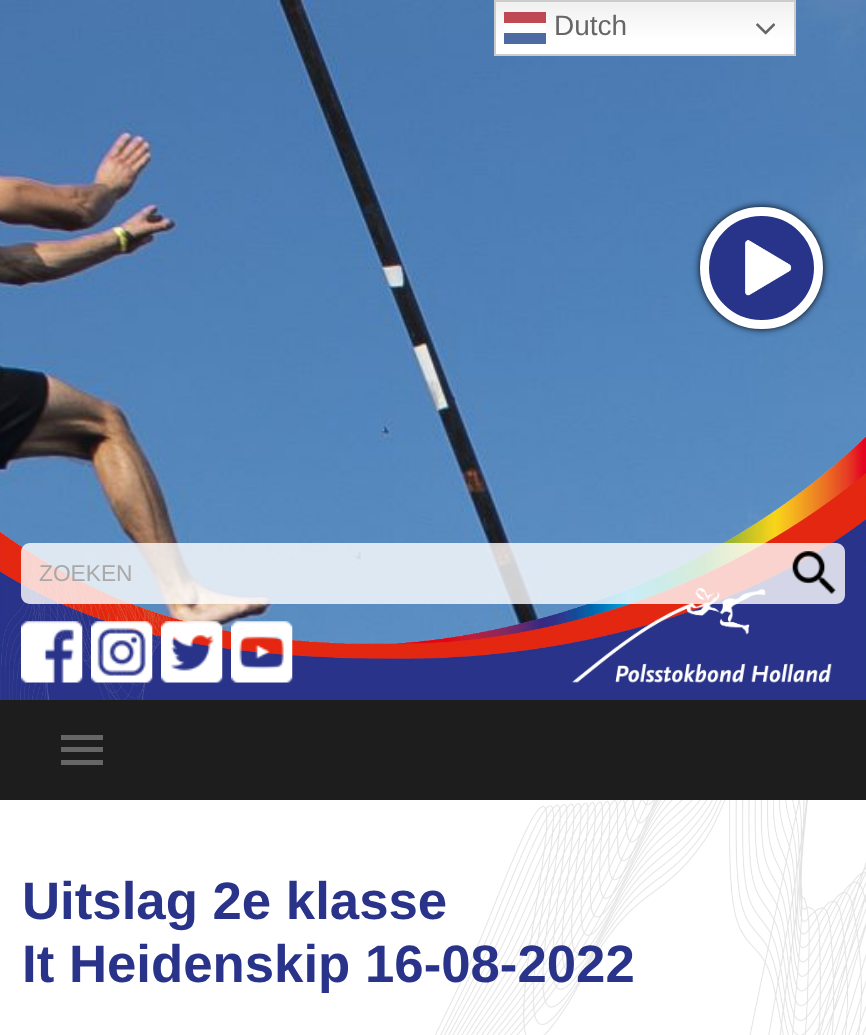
<svg xmlns="http://www.w3.org/2000/svg" xmlns:xlink="http://www.w3.org/1999/xlink" width="866" height="1035" viewBox="0 0 866 1035">
<style>
.cls-1{font:28px Liberation Sans;fill:#666666}
.cls-2{font:22.75px Liberation Sans;fill:#a9a9a9}
.cls-3{font:bold 52.75px Liberation Sans;fill:#29338a}
</style>
<defs>
<linearGradient id="g1" gradientUnits="userSpaceOnUse" x1="645" y1="0" x2="645" y2="56"><stop offset="0" stop-color="#efefef"/><stop offset="0.7" stop-color="#ffffff"/></linearGradient>
</defs>
<rect width="100%" height="100%" fill="#ffffff"/>
<image xlink:href="image0.png" x="435" y="800" width="431" height="235"/>
<image xlink:href="image3.png" x="0" y="0" width="866" height="700"/>
<rect fill="url(#g1)" x="496" y="2" width="298" height="52"/>
<rect fill="none" stroke="#cccccc" stroke-width="2" x="495" y="1" width="300" height="54"/>
<rect fill="#be4953" x="504" y="12" width="42" height="11"/>
<rect fill="#ffffff" fill-opacity="0.8" x="504" y="23" width="42" height="8"/>
<image xlink:href="image1.png" x="756" y="23" width="19" height="12"/>
<rect fill="#4d6ba2" x="504" y="33" width="42" height="11"/>
<rect fill="#000000" filter="blur(3.5px)" x="700" y="207" width="123" height="122" rx="61"/>
<rect fill="#28338a" x="700" y="207" width="123" height="122" rx="61"/>
<image xlink:href="image2.png" x="745" y="240" width="47" height="56"/>
<rect fill="none" stroke="#ffffff" stroke-width="9" x="704.5" y="211.5" width="114" height="113" rx="56.5"/>
<image xlink:href="image9.png" x="572" y="588" width="260" height="95"/>
<path fill="#ffffff" fill-opacity="0.8" d="M30 543H784V604H30C25 604 21 600 21 595V552C21 547 25 543 30 543Z"/>
<path fill="#ffffff" fill-opacity="0.8" d="M784 543H836C841 543 845 547 845 552V595C845 600 841 604 836 604H784Z"/>
<image xlink:href="image4.png" x="792" y="551" width="44" height="43"/>
<image xlink:href="image5.png" x="21" y="621" width="62" height="62"/>
<image xlink:href="image6.png" x="91" y="621" width="62" height="62"/>
<image xlink:href="image7.png" x="161" y="621" width="62" height="62"/>
<image xlink:href="image8.png" x="231" y="621" width="62" height="62"/>
<rect fill="#1d1d1d" x="0" y="700" width="866" height="100"/>
<rect fill="#666666" x="61" y="735" width="42" height="5"/>
<rect fill="#666666" x="61" y="747" width="42" height="5"/>
<rect fill="#666666" x="61" y="760" width="42" height="5"/>
<text class="cls-1" x="554" y="35">Dutch</text>
<text class="cls-2" x="39" y="581">ZOEKEN</text>
<text class="cls-3"><tspan x="22" y="919">Uitslag 2e klasse</tspan><tspan x="22" y="982">It Heidenskip 16-08-2022</tspan></text>
</svg>
